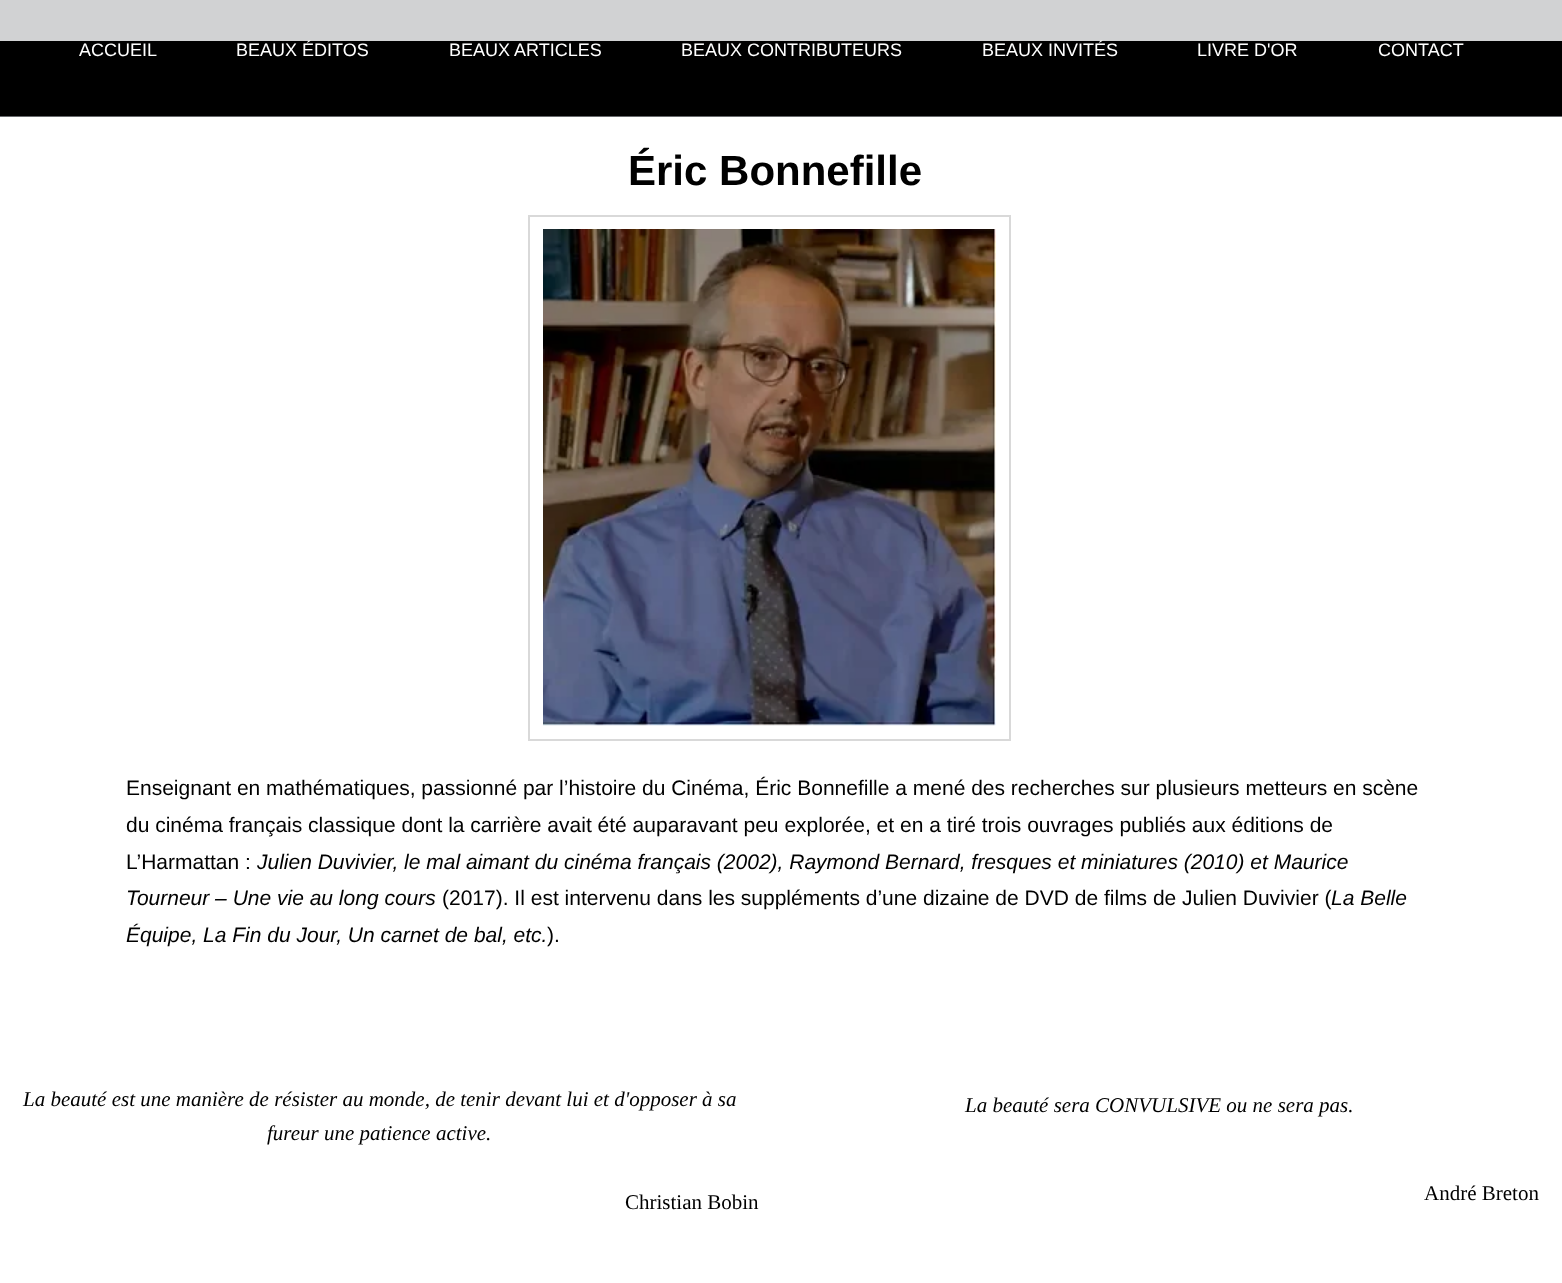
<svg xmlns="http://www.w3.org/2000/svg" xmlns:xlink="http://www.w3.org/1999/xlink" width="1562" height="1283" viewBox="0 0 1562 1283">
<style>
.cls-1{font:18px Liberation Sans;fill:#ffffff}
.cls-2{font:bold 42px Liberation Sans;fill:#000000}
.cls-3{font:21px Liberation Sans;fill:#000000}
.cls-4{font:italic 21px Liberation Sans;fill:#000000}
.cls-5{font:italic 21px Liberation Serif;fill:#000000}
.cls-6{font:21px Liberation Serif;fill:#000000}
</style>
<rect width="100%" height="100%" fill="#67696c"/>
<rect fill="#d1d2d3" x="0" y="0" width="1562" height="41"/>
<rect fill="#000000" x="0" y="41" width="1562" height="75"/>
<rect fill="#ffffff" x="0" y="117" width="1562" height="1166"/>
<rect fill="none" stroke="#d9d9d9" stroke-width="2" x="529" y="216" width="481" height="524"/>
<image xlink:href="image0.png" x="543" y="229" width="453" height="497"/>
<text class="cls-1" x="79" y="56">ACCUEIL</text>
<text class="cls-1" x="236" y="56">BEAUX ÉDITOS</text>
<text class="cls-1" x="449" y="56">BEAUX ARTICLES</text>
<text class="cls-1" x="681" y="56">BEAUX CONTRIBUTEURS</text>
<text class="cls-1" x="982" y="56">BEAUX INVITÉS</text>
<text class="cls-1" x="1197" y="56">LIVRE D'OR</text>
<text class="cls-1" x="1378" y="56">CONTACT</text>
<text class="cls-2" x="628" y="185">Éric Bonnefille</text>
<text class="cls-3"><tspan x="126" y="795">Enseignant en mathématiques, passionné par l’histoire du Cinéma, Éric Bonnefille a mené des recherches sur plusieurs metteurs en scène</tspan><tspan x="126" y="832">du cinéma français classique dont la carrière avait été auparavant peu explorée, et en a tiré trois ouvrages publiés aux éditions de</tspan><tspan x="126" y="869">L’Harmattan :</tspan></text>
<text class="cls-4" x="257" y="869">Julien Duvivier, le mal aimant du cinéma français (2002), Raymond Bernard, fresques et miniatures (2010) et Maurice</text>
<text class="cls-4" x="126" y="905">Tourneur – Une vie au long cours</text>
<text class="cls-3" x="442" y="905">(2017). Il est intervenu dans les suppléments d’une dizaine de DVD de films de Julien Duvivier (</text>
<text class="cls-4" x="1331" y="905">La Belle</text>
<text class="cls-4" x="126" y="942">Équipe, La Fin du Jour, Un carnet de bal, etc.</text>
<text class="cls-3" x="547" y="942">).</text>
<text class="cls-5" x="23" y="1106">La beauté est une manière de résister au monde, de tenir devant lui et d'opposer à sa</text>
<text class="cls-5" x="267" y="1140">fureur une patience active.</text>
<text class="cls-6" x="625" y="1209">Christian Bobin</text>
<text class="cls-5" x="965" y="1112">La beauté sera CONVULSIVE ou ne sera pas.</text>
<text class="cls-6" x="1424" y="1200">André Breton</text>
</svg>
